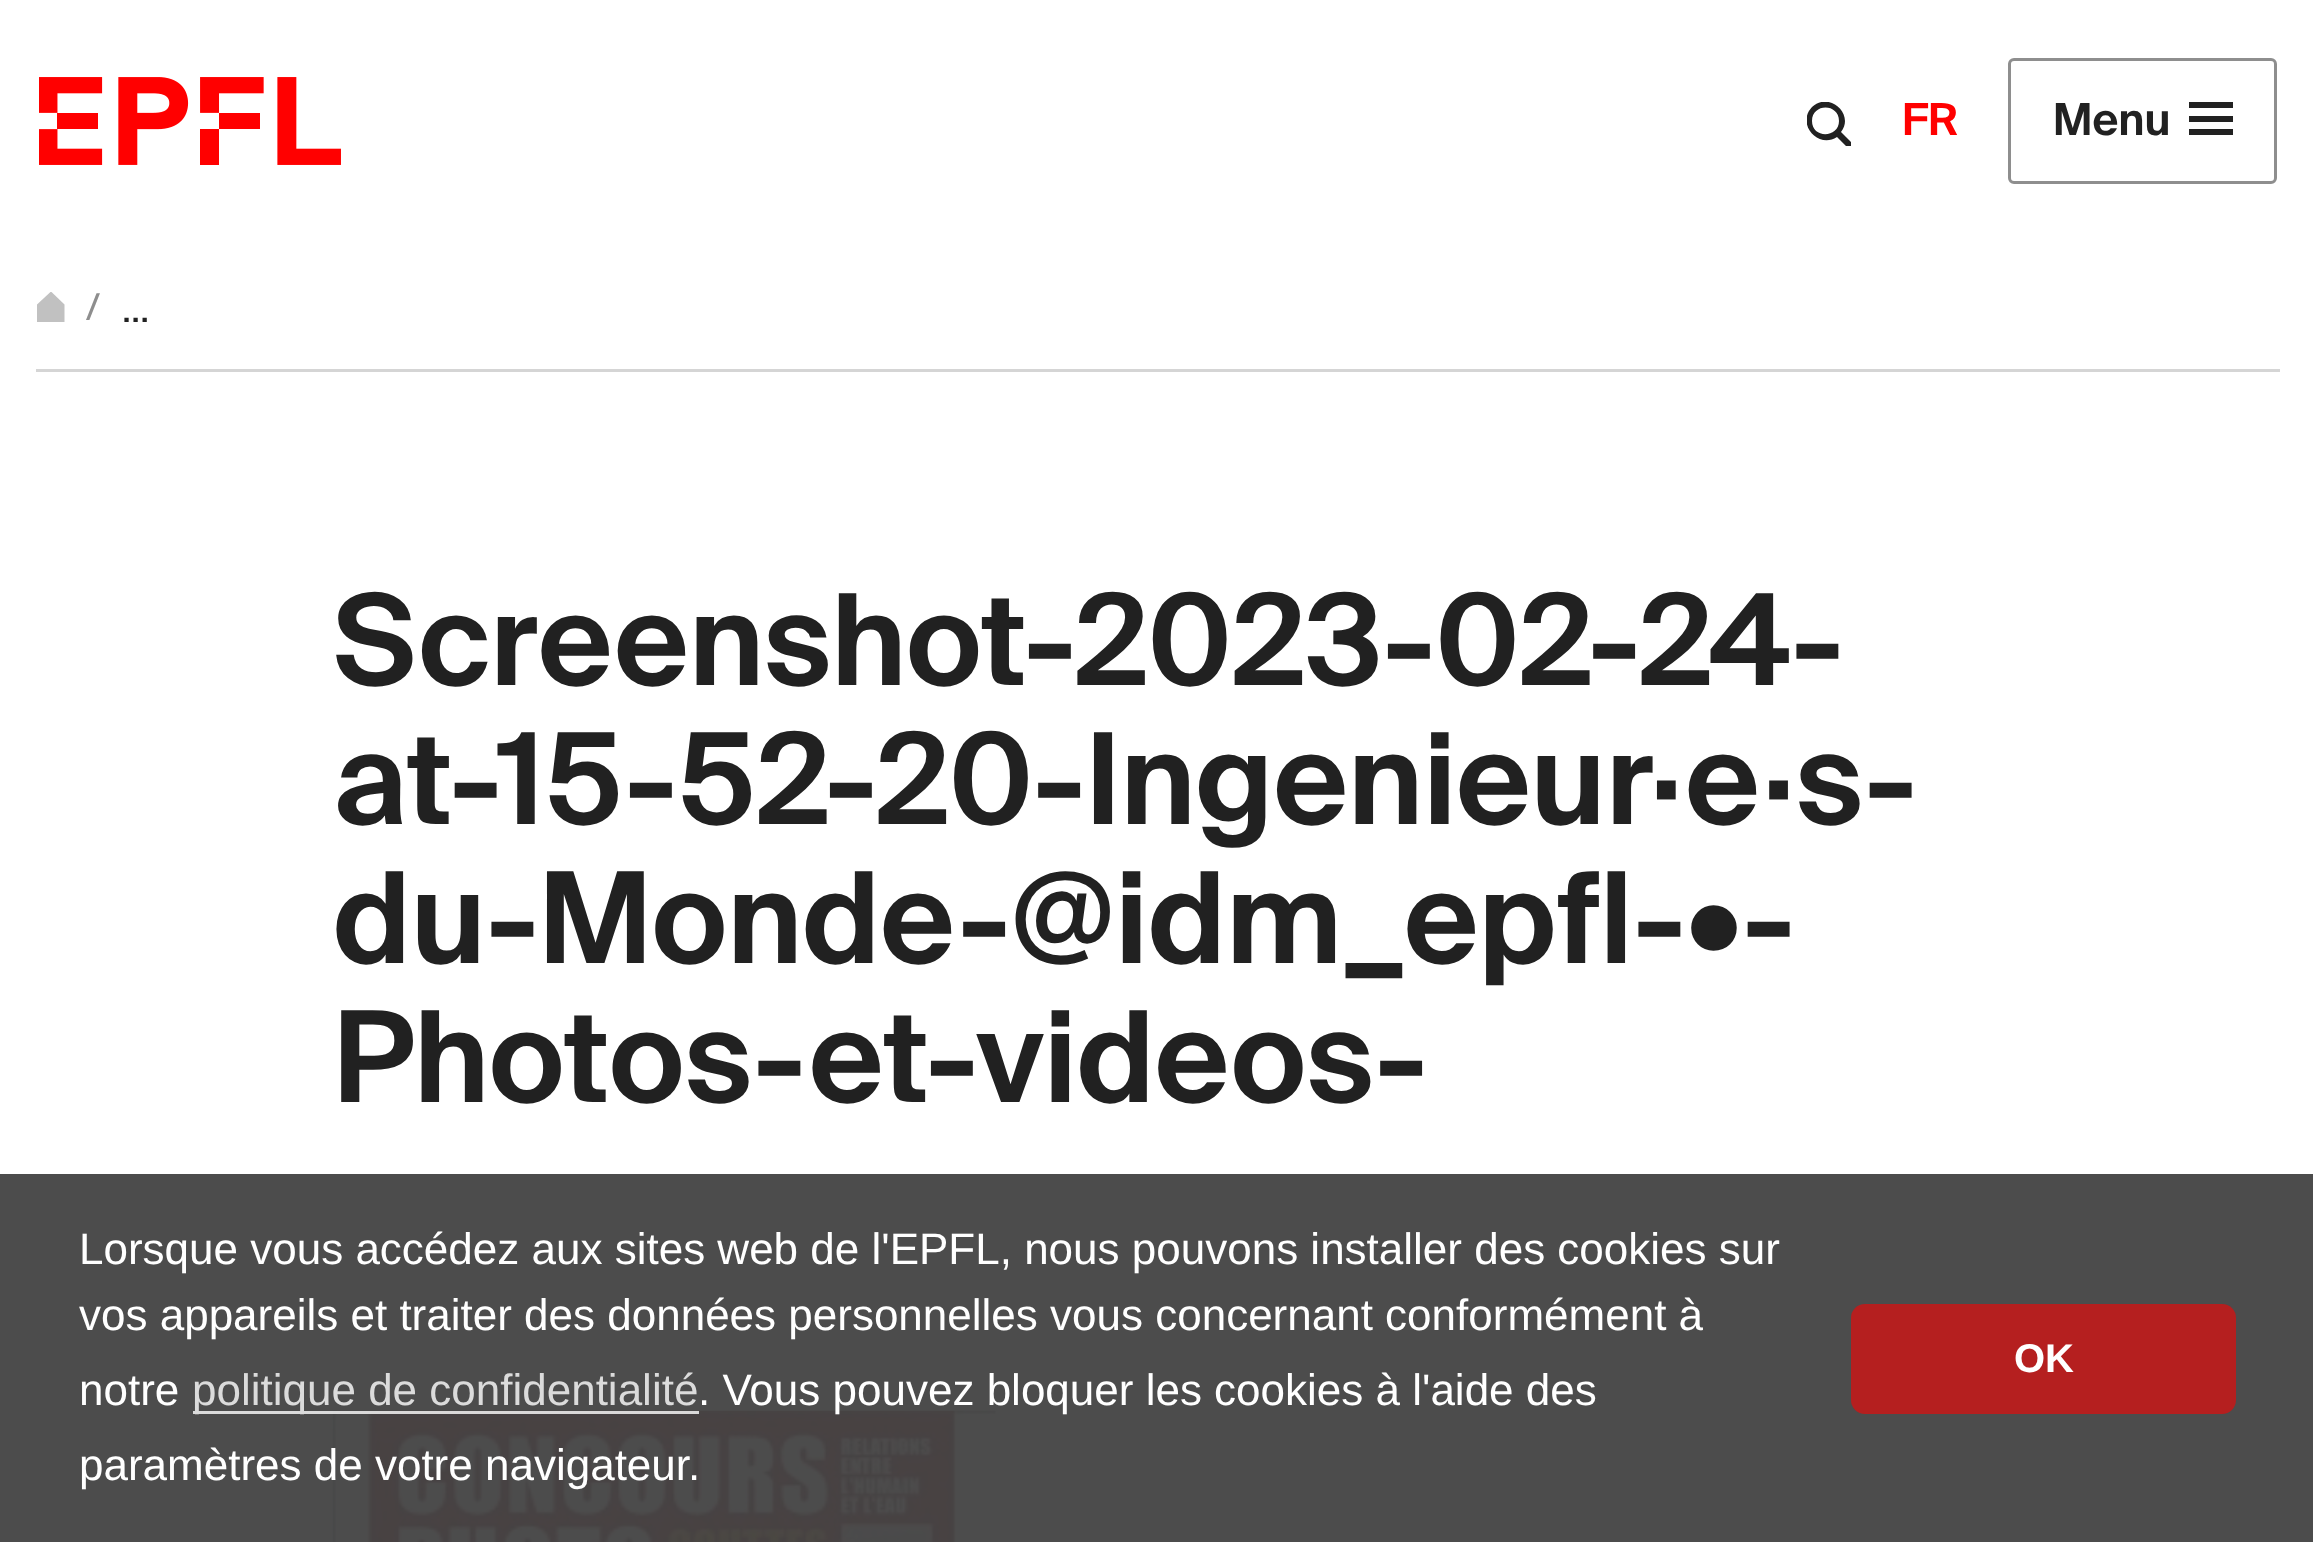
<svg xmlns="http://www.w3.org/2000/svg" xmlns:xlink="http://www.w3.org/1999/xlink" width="2313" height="1542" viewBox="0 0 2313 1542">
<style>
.cls-1{font:600 44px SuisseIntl;fill:#ff0000}
.cls-2{font:600 44px SuisseIntl;fill:#212121}
.cls-3{font:37px SuisseIntl;fill:#8e8e8e}
.cls-4{font:37px SuisseIntl;fill:#212121}
.cls-5{font:600 126.5px SuisseIntl;fill:#212121}
.cls-6{font:44px Liberation Sans;fill:#ffffff}
.cls-7{font:44px Liberation Sans;fill:#dbdbdb}
.cls-8{font:bold 40px Liberation Sans;fill:#ffffff}
</style>
<defs>
<clipPath id="clip1"><rect x="1807" y="102" width="44" height="44"/></clipPath>
<clipPath id="clip2"><rect x="36" y="292" width="30" height="30"/></clipPath>
</defs>
<rect width="100%" height="100%" fill="#ffffff"/>
<image xlink:href="image0.png" x="39" y="77" width="302" height="88"/>
<g clip-path="url(#clip1)">
<path fill="#212121" d="M1853 144L1841 132C1855 114 1829 91 1812 107C1796 124 1818 149 1837 137L1849 149ZM1812 121C1812 103 1839 103 1839 121C1839 138 1812 139 1812 121Z"/>
</g>
<rect fill="none" stroke="#8e8e8e" stroke-width="3" x="2009.5" y="59.5" width="266" height="123" rx="4.5"/>
<rect fill="#212121" x="2189" y="102" width="44" height="6"/>
<rect fill="#212121" x="2189" y="116" width="44" height="6"/>
<rect fill="#212121" x="2189" y="129" width="44" height="6"/>
<rect fill="#d5d5d5" x="36" y="369" width="2244" height="3"/>
<g clip-path="url(#clip2)">
<path fill="#c1c1c1" fill-rule="evenodd" d="M37 304.5L51 291.5L64.5 304.5V323H37Z"/>
</g>
<image xlink:href="image1.png" x="332" y="1410" width="664" height="132"/>
<rect fill="#454545" fill-opacity="0.96" x="0" y="1174" width="2313" height="368"/>
<rect fill="#ffffff" fill-opacity="0.8" x="193" y="1411" width="506" height="3"/>
<rect fill="#b51f1f" x="1851" y="1304" width="385" height="110" rx="14"/>
<text class="cls-1" x="1902" y="135">FR</text>
<text class="cls-2" x="2053" y="135">Menu</text>
<text class="cls-3" x="86" y="320">/</text>
<text class="cls-4" x="122" y="322">…</text>
<text class="cls-5"><tspan x="333" y="685">Screenshot-2023-02-24-</tspan><tspan x="333" y="824">at-15-52-20-Ingenieur·e·s-</tspan><tspan x="333" y="963">du-Monde-@idm_epfl-•-</tspan><tspan x="333" y="1102">Photos-et-videos-</tspan></text>
<text class="cls-6"><tspan x="79" y="1264">Lorsque vous accédez aux sites web de l'EPFL, nous pouvons installer des cookies sur</tspan><tspan x="79" y="1330">vos appareils et traiter des données personnelles vous concernant conformément à</tspan><tspan x="79" y="1405">notre</tspan></text>
<text class="cls-7" x="192" y="1405">politique de confidentialité</text>
<text class="cls-6" x="698" y="1405">. Vous pouvez bloquer les cookies à l'aide des</text>
<text class="cls-6" x="79" y="1480">paramètres de votre navigateur.</text>
<text class="cls-8" x="2014" y="1372">OK</text>
</svg>
